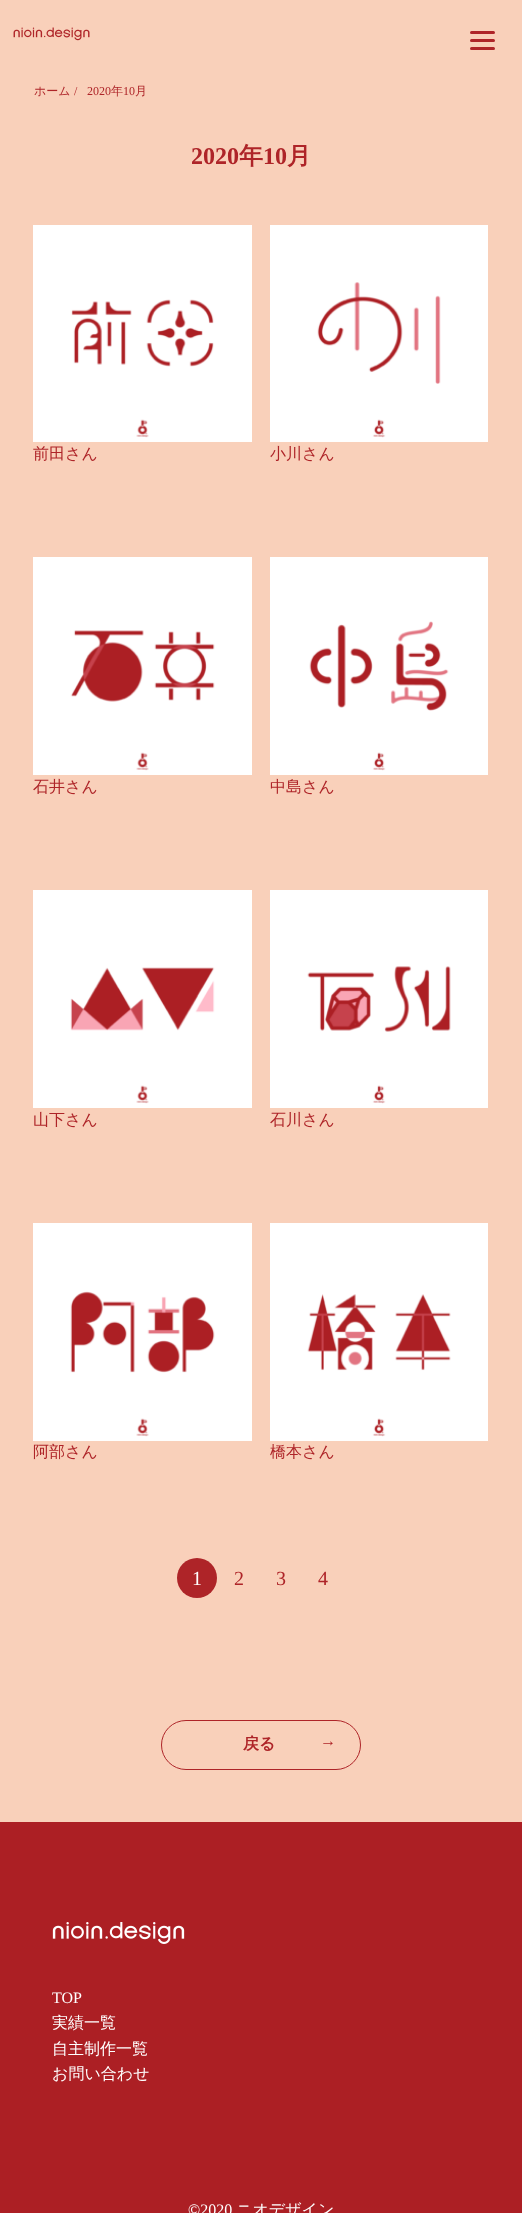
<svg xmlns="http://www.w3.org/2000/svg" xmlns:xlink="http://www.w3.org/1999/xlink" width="522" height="2213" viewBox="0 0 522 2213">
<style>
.cls-1{font:500 12px WenQuanYi Zen Hei;fill:#ae2428}
.cls-2{font:12px Liberation Serif;fill:#ae2428}
.cls-3{font:bold 24px Liberation Serif;fill:#ae2428}
.cls-4{font:bold 24px WenQuanYi Zen Hei;fill:#ae2428}
.cls-5{font:500 16px WenQuanYi Zen Hei;fill:#ae2428}
.cls-6{font:20px Liberation Serif;fill:#ffffff}
.cls-7{font:20px Liberation Serif;fill:#ae2428}
.cls-8{font:bold 16px WenQuanYi Zen Hei;fill:#ae2428}
.cls-9{font:bold 16px Liberation Serif;fill:#ae2428}
.cls-10{font:16px Liberation Serif;fill:#ffffff}
.cls-11{font:500 16px WenQuanYi Zen Hei;fill:#ffffff}
</style>
<rect width="100%" height="100%" fill="#f9d0ba"/>
<image xlink:href="image0.png" x="13" y="27" width="77" height="14"/>
<rect fill="#ae2428" x="470" y="39" width="25" height="3" rx="1.5"/>
<rect fill="#ae2428" x="470" y="31" width="25" height="3" rx="1.5"/>
<rect fill="#ae2428" x="470" y="47" width="25" height="3" rx="1.5"/>
<image xlink:href="image1.png" x="33" y="225" width="219" height="217"/>
<image xlink:href="image2.png" x="270" y="225" width="218" height="217"/>
<image xlink:href="image3.png" x="33" y="557" width="219" height="218"/>
<image xlink:href="image4.png" x="270" y="557" width="218" height="218"/>
<image xlink:href="image5.png" x="33" y="890" width="219" height="218"/>
<image xlink:href="image6.png" x="270" y="890" width="218" height="218"/>
<image xlink:href="image7.png" x="33" y="1223" width="219" height="218"/>
<image xlink:href="image8.png" x="270" y="1223" width="218" height="218"/>
<circle fill="#ae2428" cx="197" cy="1578" r="20"/>
<rect fill="none" stroke="#ae2428" x="161.5" y="1720.5" width="199" height="49" rx="24.5"/>
<rect fill="#ac1f24" x="0" y="1822" width="522" height="391"/>
<image xlink:href="image9.png" x="52" y="1922" width="133" height="22"/>
<text class="cls-1" x="34" y="95">ホーム</text>
<text class="cls-2" x="74" y="95">/</text>
<text class="cls-2" x="87" y="95">2020</text>
<text class="cls-1" x="111" y="95">年</text>
<text class="cls-2" x="123" y="95">10</text>
<text class="cls-1" x="135" y="95">月</text>
<text class="cls-3" x="191" y="164">2020</text>
<text class="cls-4" x="239" y="164">年</text>
<text class="cls-3" x="263" y="164">10</text>
<text class="cls-4" x="287" y="164">月</text>
<text class="cls-5" x="33" y="459">前田さん</text>
<text class="cls-5" x="270" y="459">小川さん</text>
<text class="cls-5" x="33" y="792">石井さん</text>
<text class="cls-5" x="270" y="792">中島さん</text>
<text class="cls-5" x="33" y="1125">山下さん</text>
<text class="cls-5" x="270" y="1125">石川さん</text>
<text class="cls-5" x="33" y="1457">阿部さん</text>
<text class="cls-5" x="270" y="1457">橋本さん</text>
<text class="cls-6" x="192" y="1585">1</text>
<text class="cls-7" x="234" y="1585">2</text>
<text class="cls-7" x="276" y="1585">3</text>
<text class="cls-7" x="318" y="1585">4</text>
<text class="cls-8" x="243" y="1749">戻る</text>
<text class="cls-9" x="320" y="1746">→</text>
<text class="cls-10" x="52" y="2003">TOP</text>
<text class="cls-11"><tspan x="52" y="2028">実績一覧</tspan><tspan x="52" y="2054">自主制作一覧</tspan><tspan x="52" y="2079">お問い合わせ</tspan></text>
<text class="cls-10" x="188" y="2215">©2020</text>
<text class="cls-11" x="236" y="2215">ニオデザイン</text>
</svg>
